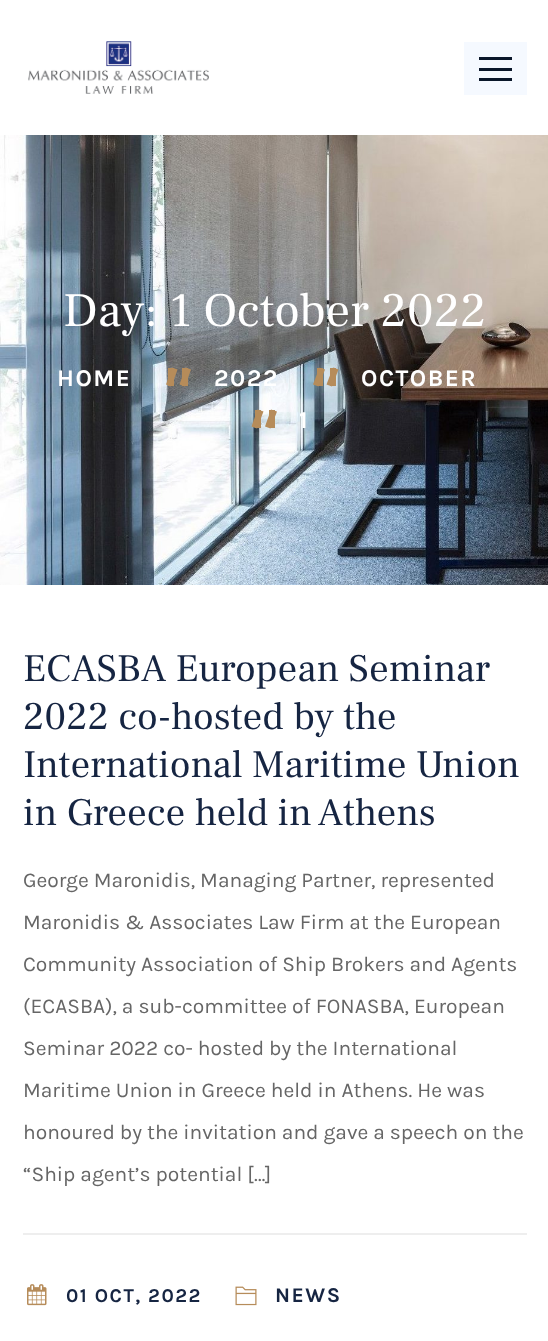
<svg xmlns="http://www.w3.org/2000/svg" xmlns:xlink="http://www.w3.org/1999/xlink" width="548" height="1341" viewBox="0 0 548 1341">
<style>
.cls-1{font:48px Frank Ruhl Libre;fill:#ffffff}
.cls-2{font:bold 24px Karla;letter-spacing:1.5px;fill:#ffffff}
.cls-3{font:39px Frank Ruhl Libre;fill:#162542}
.cls-4{font:21px Karla;fill:#666666}
.cls-5{font:bold 19.5px Karla;letter-spacing:1.5px;fill:#162542}
.cls-6{font:bold 21px Karla;letter-spacing:1.5px;fill:#162542}
</style>
<rect width="100%" height="100%" fill="#ffffff"/>
<image xlink:href="image0.png" x="28" y="41" width="181" height="53"/>
<rect fill="#f5f9ff" x="464" y="42" width="63" height="53"/>
<rect fill="#0a172a" x="479" y="57" width="33" height="3"/>
<rect fill="#0a172a" x="479" y="68" width="33" height="3"/>
<rect fill="#0a172a" x="479" y="78" width="33" height="3"/>
<image xlink:href="image1.png" x="0" y="135" width="548" height="450"/>
<rect fill="#b68c5a" x="182" y="368" width="6" height="18"/>
<rect fill="#b68c5a" x="168" y="368" width="6" height="18"/>
<path fill="#b68c5a" d="M185.5 367.5L191 369.5L185 386.5L179.5 384.5ZM172 367.5L177.5 369.5L171.5 386.5L166 384.5Z"/>
<rect fill="#b68c5a" x="330" y="368" width="6" height="18"/>
<rect fill="#b68c5a" x="317" y="368" width="6" height="18"/>
<path fill="#b68c5a" d="M333 367.5L338.5 369.5L332 386.5L326.5 384.5ZM319.5 367.5L325 369.5L318.5 386.5L313 384.5Z"/>
<rect fill="#b68c5a" x="269" y="410" width="6" height="18"/>
<rect fill="#b68c5a" x="255" y="410" width="6" height="18"/>
<path fill="#b68c5a" d="M271 409.5L277 411.5L270.5 428.5L265 426.5ZM257.5 409.5L263.5 411.5L257 428.5L251.5 426.5Z"/>
<rect fill="#eeeeee" x="23" y="1233" width="504" height="2"/>
<image xlink:href="image2.png" x="27" y="1284" width="20" height="22"/>
<image xlink:href="image3.png" x="235" y="1286" width="22" height="20"/>
<text class="cls-1" x="63" y="326">Day: 1 October 2022</text>
<text class="cls-2" x="57" y="386">HOME</text>
<text class="cls-2" x="214" y="386">2022</text>
<text class="cls-2" x="361" y="386">OCTOBER</text>
<text class="cls-2" x="299" y="428">1</text>
<text class="cls-3"><tspan x="23" y="681">ECASBA European Seminar</tspan><tspan x="23" y="729">2022 co-hosted by the</tspan><tspan x="23" y="777">International Maritime Union</tspan><tspan x="23" y="825">in Greece held in Athens</tspan></text>
<text class="cls-4" x="23" y="887">George Maronidis, Managing Partner, represented</text>
<text class="cls-4" x="23" y="929">Maronidis &amp; Associates Law Firm at the European</text>
<text class="cls-4" x="23" y="971">Community Association of Ship Brokers and Agents</text>
<text class="cls-4" x="23" y="1013">(ECASBA), a sub-committee of FONASBA, European</text>
<text class="cls-4" x="23" y="1055">Seminar 2022 co- hosted by the International</text>
<text class="cls-4" x="23" y="1097">Maritime Union in Greece held in Athens. He was</text>
<text class="cls-4" x="23" y="1139">honoured by the invitation and gave a speech on the</text>
<text class="cls-4" x="23" y="1181">“Ship agent’s potential […]</text>
<text class="cls-5" x="66" y="1302">01 OCT, 2022</text>
<text class="cls-6" x="275" y="1302">NEWS</text>
</svg>
